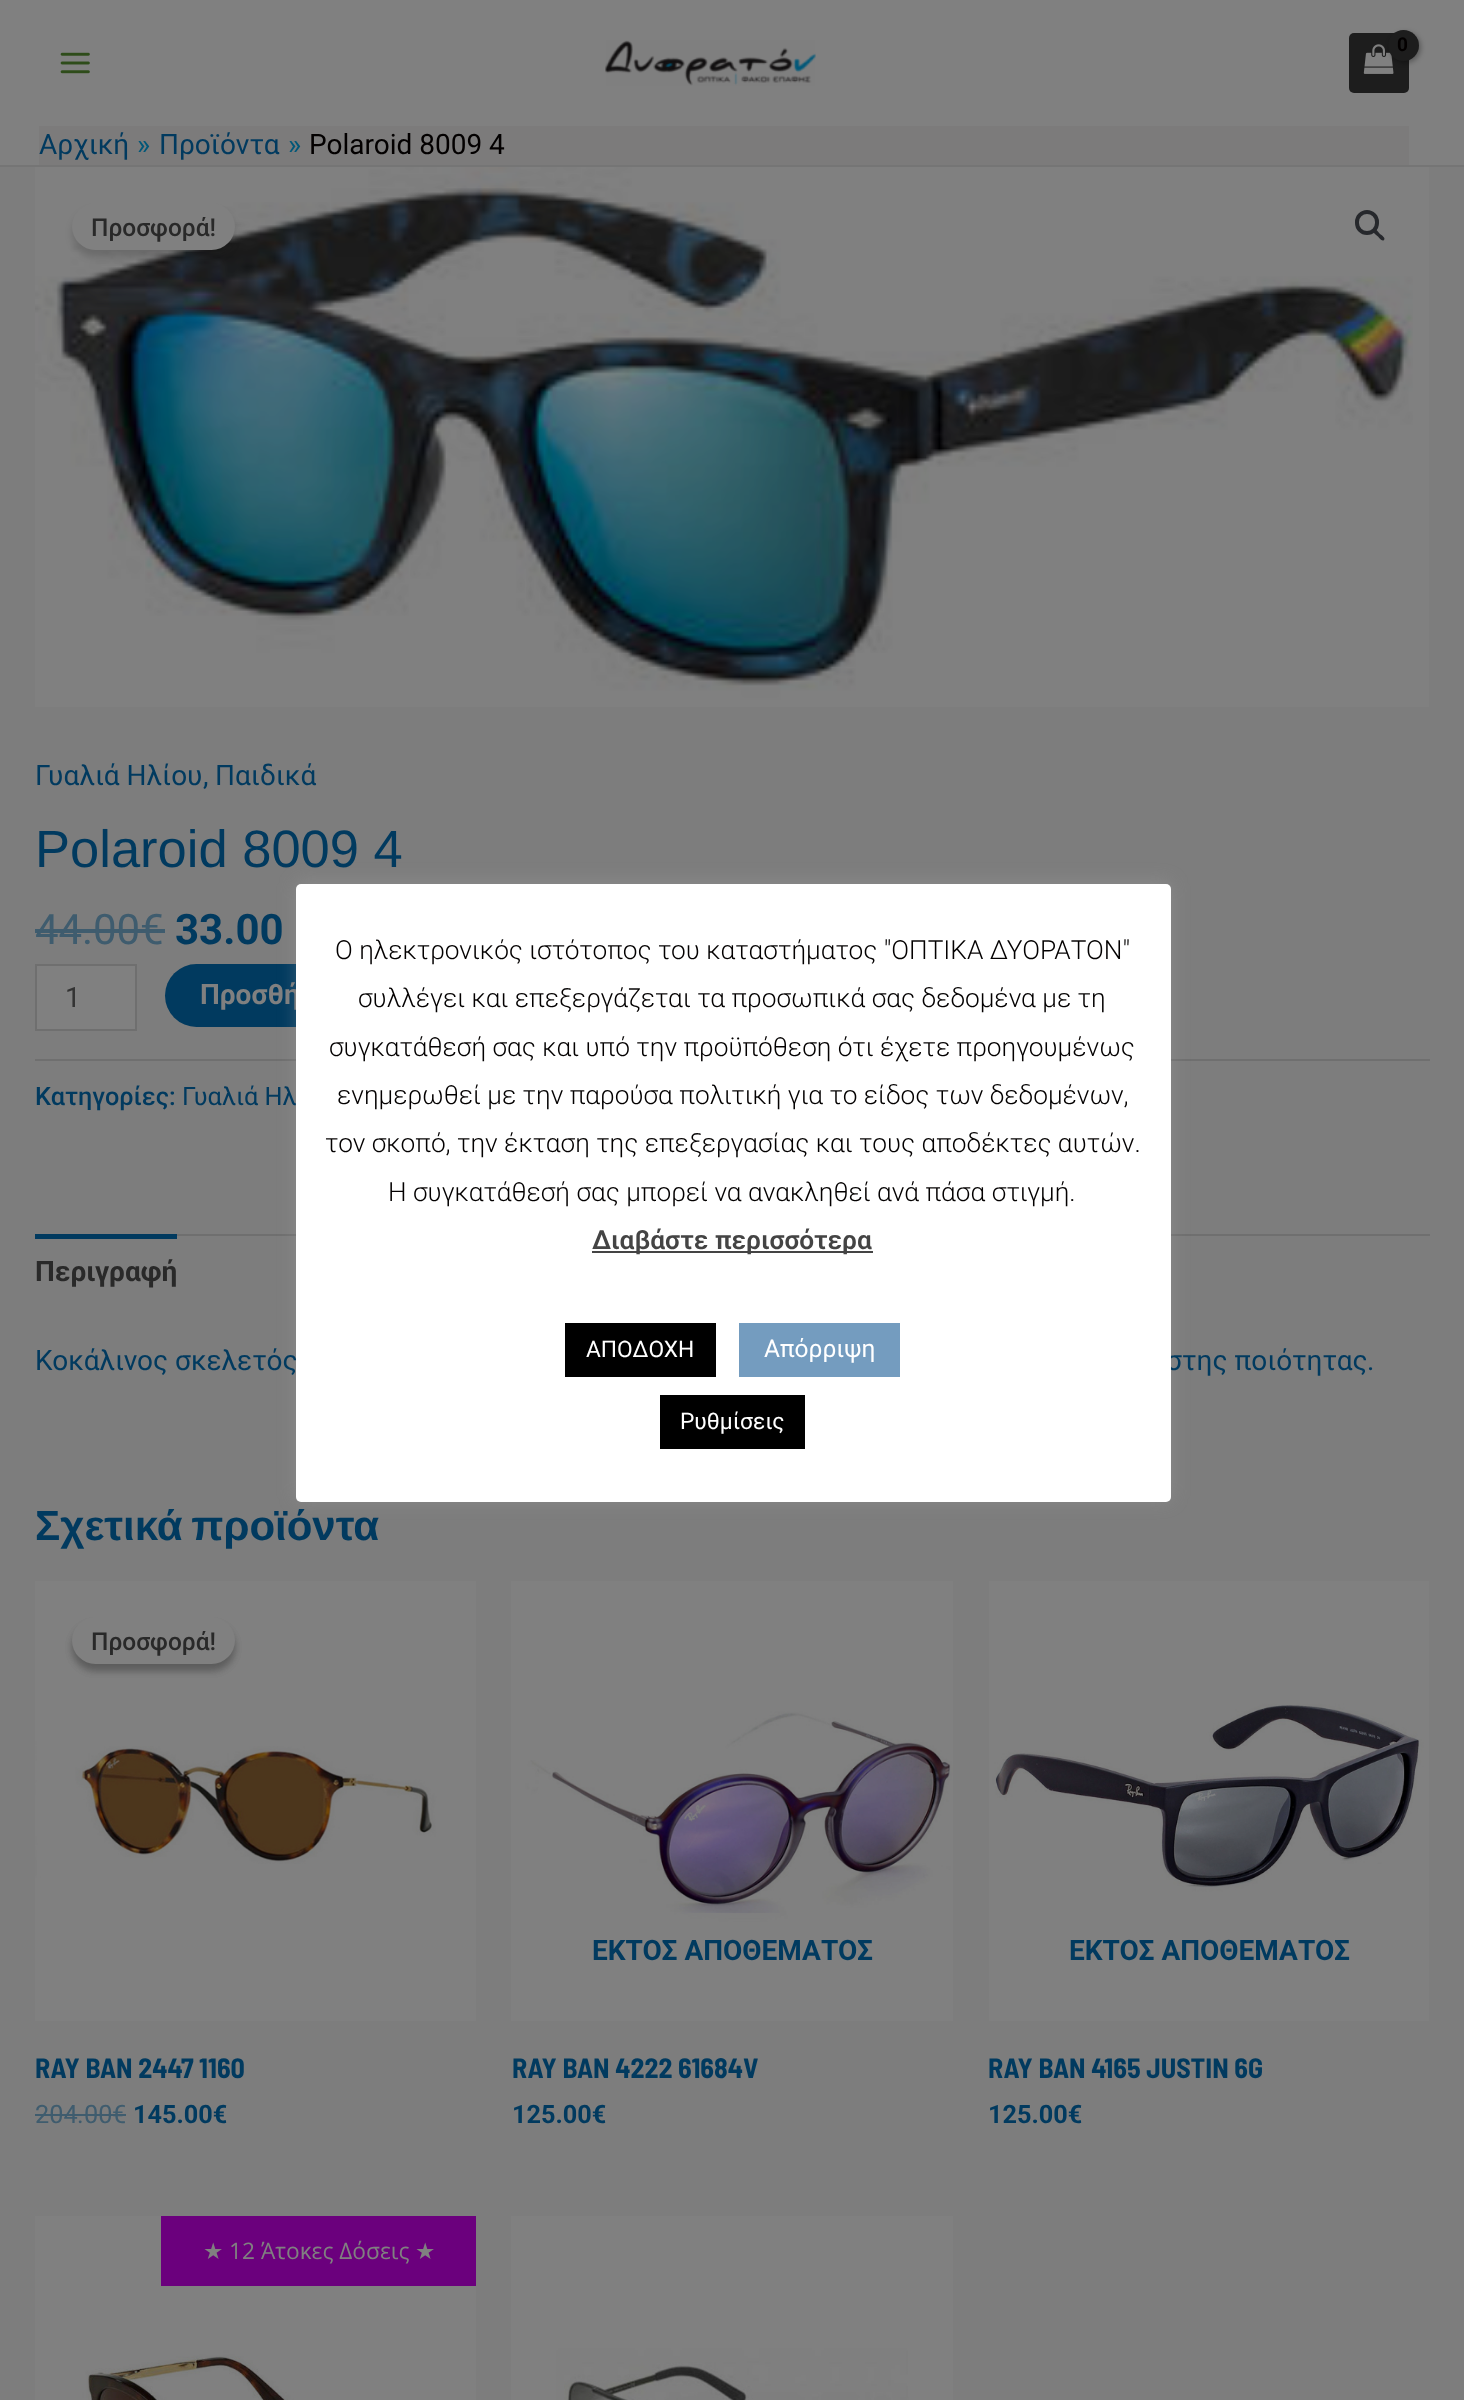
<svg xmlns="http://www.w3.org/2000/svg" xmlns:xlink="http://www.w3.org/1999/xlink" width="1464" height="2400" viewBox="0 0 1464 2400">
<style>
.cls-1{font:bold 19px Roboto;letter-spacing:-1px;fill:#030000}
.cls-2{font:28px Roboto;fill:#013a5f}
.cls-3{font:28px 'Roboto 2';fill:#015778}
.cls-4{font:28px Roboto;fill:#030000}
.cls-5{font:500 24.5px Roboto;fill:#292929}
.cls-6{font:28px 'Roboto 2';fill:#013a5f}
.cls-7{font:52.5px Liberation Sans;fill:#013a5f}
.cls-8{font:42px Roboto;fill:#3f5c6e}
.cls-9{font:42px 'Roboto 2';fill:#3f5c6e}
.cls-10{font:bold 42px Roboto;fill:#013a5f}
.cls-11{font:28px Roboto;fill:#333333}
.cls-12{font:bold 28px Roboto;fill:#808080}
.cls-13{font:500 25.25px Roboto;fill:#013a5f}
.cls-14{font:25.25px Roboto;fill:#013a5f}
.cls-15{font:bold 28px Roboto;fill:#292929}
.cls-16{font:bold 42px Liberation Sans;fill:#013a5f}
.cls-17{font:bold 28px Barlow Semi Condensed;fill:#013a5f}
.cls-18{font:25.25px Roboto;fill:#3f5c6e}
.cls-19{font:25.25px 'Roboto 2';fill:#3f5c6e}
.cls-20{font:bold 25.25px Roboto;fill:#013a5f}
.cls-21{font:bold 28px Roboto;fill:#013a5f}
.cls-22{font:22.75px DejaVu Sans;fill:#808080}
.cls-23{font:22.75px Open Sans;fill:#808080}
.cls-24{font:300 26.25px Roboto;fill:#030000}
.cls-25{font:600 26.25px Roboto;fill:#444444}
.cls-26{font:22.75px Roboto;fill:#ffffff}
.cls-27{font:24.5px Roboto;fill:#ffffff}
</style>
<rect width="100%" height="100%" fill="#7d7d7d"/>
<rect fill="#808080" x="0" y="0" width="1464" height="165"/>
<rect fill="#757575" x="0" y="165" width="1464" height="2"/>
<image xlink:href="image0.png" x="60" y="52" width="30" height="22"/>
<image xlink:href="image1.png" x="605" y="40" width="211" height="46"/>
<rect fill="#1d1d1d" x="1349" y="33" width="60" height="60" rx="5"/>
<image xlink:href="image2.png" x="1363" y="44" width="31" height="30"/>
<rect fill="#000000" fill-opacity="0.3" filter="blur(2.5px)" x="1390" y="32" width="31" height="31" rx="15.5"/>
<circle fill="#1d1d1d" cx="1403.5" cy="45.5" r="15.5"/>
<rect fill="#7c7b7b" x="39" y="126" width="1370" height="39"/>
<image xlink:href="image3.png" x="35" y="167" width="1394" height="540"/>
<rect fill="none" stroke="#26282c" stroke-width="4" x="1357" y="212" width="20" height="21" rx="10"/>
<path fill="#26282c" d="M1374 230C1376 228 1379 233 1380 234C1381.5 235 1386 238 1384 240C1382 242 1379 237.5 1378 236.5C1376.5 235.5 1372 232 1374 230Z"/>
<rect fill="#000000" fill-opacity="0.15" filter="blur(3.5px)" x="72" y="210" width="163" height="47" rx="23.5"/>
<rect fill="#808080" x="72" y="203" width="163" height="47" rx="23.5"/>
<rect fill="#3f5c6e" x="35" y="929" width="105" height="4"/>
<rect fill="#3f5c6e" x="140" y="929" width="25" height="4"/>
<rect fill="#808080" stroke="#6f6f6f" stroke-width="2" x="36" y="965" width="100" height="65"/>
<rect fill="#013a5f" x="165" y="964" width="351" height="63" rx="31.5"/>
<rect fill="#6f6f6f" x="35" y="1059" width="1395" height="2"/>
<rect fill="#6f6f6f" x="177" y="1234" width="1253" height="2"/>
<rect fill="#013a5f" x="35" y="1234" width="142" height="5"/>
<image xlink:href="image4.png" x="35" y="1581" width="441" height="440"/>
<rect fill="#000000" fill-opacity="0.15" filter="blur(3.5px)" x="72" y="1624" width="163" height="47" rx="23.5"/>
<rect fill="#000000" fill-opacity="0.15" filter="blur(3.5px)" x="72" y="1624" width="163" height="47" rx="23.5"/>
<rect fill="#808080" x="72" y="1617" width="163" height="47" rx="23.5"/>
<rect fill="#3f5c6e" x="35" y="2114" width="77" height="2"/>
<rect fill="#3f5c6e" x="112" y="2114" width="14" height="2"/>
<image xlink:href="image5.png" x="511" y="1581" width="442" height="440"/>
<rect fill="#808080" fill-opacity="0.88" x="688" y="1913" width="92" height="5"/>
<image xlink:href="image6.png" x="989" y="1581" width="440" height="440"/>
<image xlink:href="image7.png" x="35" y="2216" width="441" height="184"/>
<rect fill="#6b007d" x="161" y="2216" width="315" height="70"/>
<image xlink:href="image8.png" x="511" y="2216" width="442" height="184"/>
<rect fill="#acabab" fill-opacity="0.3" filter="blur(9px)" x="296" y="882" width="875" height="618" rx="5"/>
<text class="cls-1" x="1397" y="51">0</text>
<text class="cls-2" x="39" y="154">Αρχική</text>
<text class="cls-3" x="137" y="154">»</text>
<text class="cls-2" x="159" y="154">Προϊόντα</text>
<text class="cls-3" x="288" y="154">»</text>
<text class="cls-4" x="309" y="154">Polaroid 8009 4</text>
<text class="cls-5" x="91" y="236">Προσφορά!</text>
<text class="cls-2" x="35" y="785">Γυαλιά Ηλίου</text>
<text class="cls-6" x="203" y="785">,</text>
<text class="cls-2" x="215" y="785">Παιδικά</text>
<text class="cls-7" x="35" y="867">Polaroid 8009 4</text>
<text class="cls-8" x="35" y="944">44</text>
<text class="cls-9" x="82" y="944">.</text>
<text class="cls-8" x="93" y="944">00</text>
<text class="cls-9" x="140" y="944">€</text>
<text class="cls-10" x="175" y="944">33.00</text>
<text class="cls-11" x="65" y="1007">1</text>
<text class="cls-12" x="200" y="1004">Προσθή</text>
<text class="cls-13" x="35" y="1105">Κατηγορίες:</text>
<text class="cls-14" x="182" y="1105">Γυαλιά Ηλ</text>
<text class="cls-15" x="35" y="1281">Περιγραφή</text>
<text class="cls-2" x="35" y="1370">Κοκάλινος σκελετός</text>
<text class="cls-2" x="1166" y="1370">στης ποιότητας</text>
<text class="cls-6" x="1367" y="1370">.</text>
<text class="cls-16" x="35" y="1540" word-spacing="-3">Σχετικά προϊόντα</text>
<text class="cls-5" x="91" y="1650">Προσφορά!</text>
<text class="cls-17" x="35" y="2078">RAY BAN 2447 1160</text>
<text class="cls-18" x="35" y="2123">204</text>
<text class="cls-19" x="77" y="2123">.</text>
<text class="cls-18" x="84" y="2123">00</text>
<text class="cls-19" x="112" y="2123">€</text>
<text class="cls-20" x="133" y="2123">145.00€</text>
<text class="cls-21" x="592" y="1960">ΕΚΤΟΣ ΑΠΟΘΕΜΑΤΟΣ</text>
<text class="cls-17" x="512" y="2078">RAY BAN 4222 61684V</text>
<text class="cls-20" x="512" y="2123">125.00€</text>
<text class="cls-21" x="1069" y="1960">ΕΚΤΟΣ ΑΠΟΘΕΜΑΤΟΣ</text>
<text class="cls-17" x="988" y="2078">RAY BAN 4165 JUSTIN 6G</text>
<text class="cls-20" x="988" y="2123">125.00€</text>
<text class="cls-22" x="203" y="2259">★</text>
<text class="cls-23" x="229" y="2259">12 Άτοκες Δόσεις</text>
<text class="cls-22" x="415" y="2259">★</text>
<rect fill="#ffffff" x="296" y="884" width="875" height="618" rx="5"/>
<text class="cls-24" x="335" y="959">Ο ηλεκτρονικός ιστότοπος του καταστήματος "ΟΠΤΙΚΑ ΔΥΟΡΑΤΟΝ"</text>
<text class="cls-24" x="358" y="1007">συλλέγει και επεξεργάζεται τα προσωπικά σας δεδομένα με τη</text>
<text class="cls-24" x="329" y="1056">συγκατάθεσή σας και υπό την προϋπόθεση ότι έχετε προηγουμένως</text>
<text class="cls-24" x="337" y="1104">ενημερωθεί με την παρούσα πολιτική για το είδος των δεδομένων,</text>
<text class="cls-24" x="325" y="1152">τον σκοπό, την έκταση της επεξεργασίας και τους αποδέκτες αυτών.</text>
<text class="cls-24" x="388" y="1201">Η συγκατάθεσή σας μπορεί να ανακληθεί ανά πάσα στιγμή.</text>
<rect fill="#444444" x="592" y="1251" width="281" height="2"/>
<text class="cls-25" x="592" y="1249">Διαβάστε περισσότερα</text>
<rect fill="#000000" x="565" y="1323" width="151" height="54"/>
<text class="cls-26" x="586" y="1357">ΑΠΟΔΟΧΗ</text>
<rect fill="#749cbf" x="739" y="1323" width="161" height="54"/>
<text class="cls-27" x="764" y="1357">Απόρριψη</text>
<rect fill="#000000" x="660" y="1395" width="145" height="54"/>
<text class="cls-26" x="680" y="1429">Ρυθμίσεις</text>
</svg>
